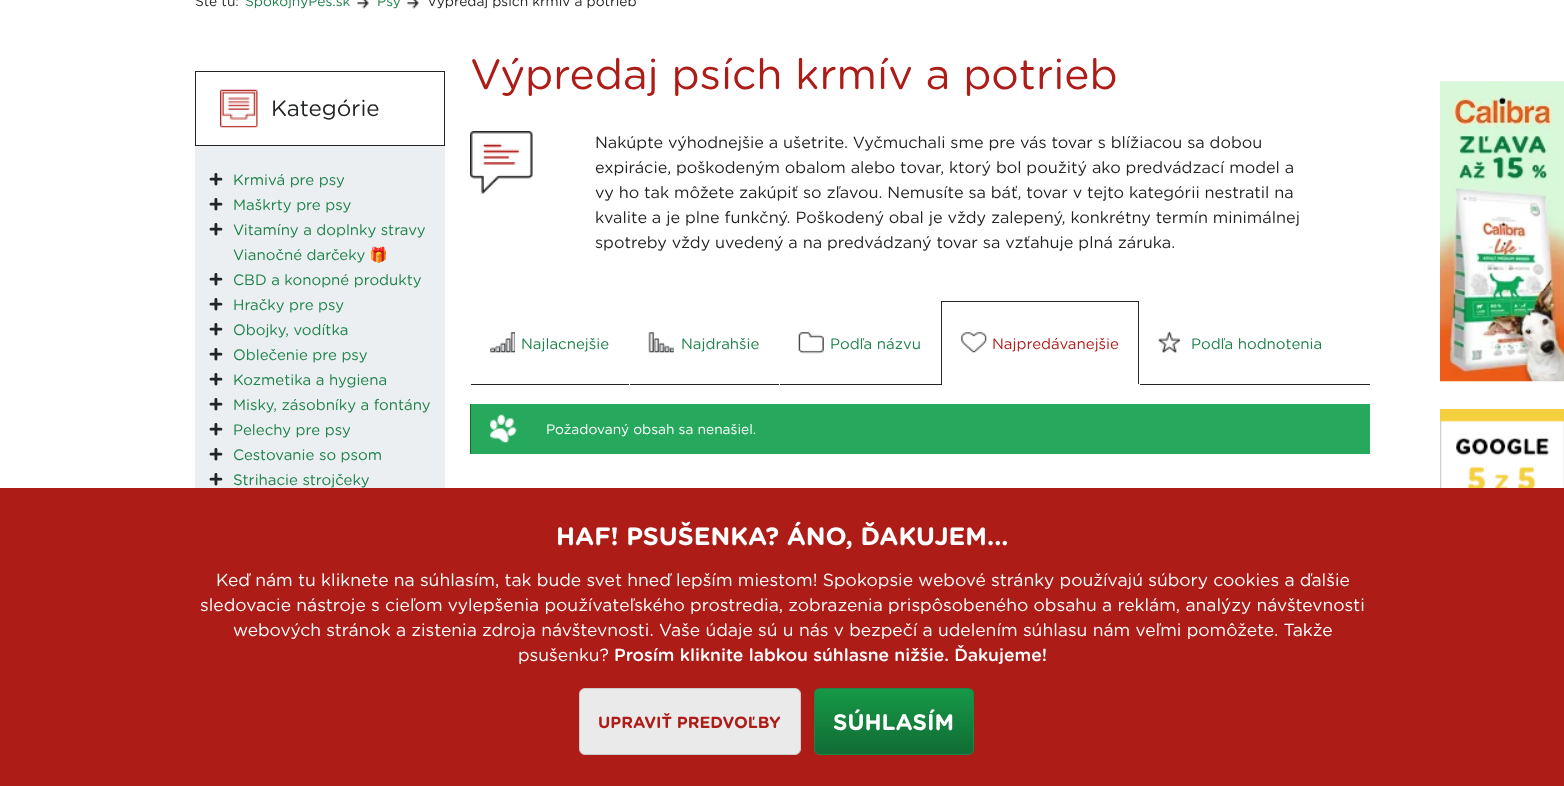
<svg xmlns="http://www.w3.org/2000/svg" xmlns:xlink="http://www.w3.org/1999/xlink" width="1564" height="786" viewBox="0 0 1564 786">
<style>
.cls-1{font:13.75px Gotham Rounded;fill:#222426}
.cls-2{font:13.75px Gotham Rounded;fill:#1e824b}
.cls-3{font:22.5px Gotham Rounded;fill:#222426}
.cls-4{font:500 25px Gotham Rounded;fill:#222426}
.cls-5{font:15px Gotham Rounded;fill:#1e824b}
.cls-6{font:15px Noto Color Emoji;fill:#1e824b}
.cls-7{font:42.5px Gotham Rounded;fill:#ad1c17}
.cls-8{font:16.25px Gotham Rounded;fill:#222426}
.cls-9{font:15px Gotham Rounded;fill:#ad1c17}
.cls-10{font:13.75px Gotham Rounded;fill:#ffffff}
.cls-11{font:bold 25px Gotham Rounded;fill:#ffffff}
.cls-12{font:17.5px Gotham Rounded;fill:#ffffff}
.cls-13{font:500 17.5px Gotham Rounded;fill:#ffffff}
.cls-14{font:bold 16.25px Gotham Rounded;fill:#ad1c17}
.cls-15{font:bold 22.5px Gotham Rounded;fill:#ffffff}
</style>
<defs>
<clipPath id="clip1"><rect x="814" y="688" width="160" height="67" rx="6"/></clipPath>
<linearGradient id="g1" gradientUnits="userSpaceOnUse" x1="894" y1="689" x2="894" y2="754"><stop offset="0" stop-color="#169946"/><stop offset="1" stop-color="#116c34"/></linearGradient>
</defs>
<rect width="100%" height="100%" fill="#ffffff"/>
<image xlink:href="image0.png" x="357" y="0" width="12" height="9"/>
<image xlink:href="image0.png" x="407" y="0" width="12" height="9"/>
<image xlink:href="image1.png" x="1440" y="81" width="124" height="301"/>
<image xlink:href="image2.png" x="1440" y="409" width="124" height="79"/>
<rect fill="none" stroke="#222426" x="195.5" y="71.5" width="249" height="74"/>
<image xlink:href="image3.png" x="220" y="89" width="38" height="39"/>
<rect fill="#ebeff1" x="195" y="146" width="250" height="342"/>
<image xlink:href="image4.png" x="470" y="131" width="63" height="63"/>
<rect fill="#222426" x="1139" y="384" width="231" height="1"/>
<rect fill="#222426" x="470" y="384" width="471" height="1"/>
<rect fill="#ffffff" x="470" y="384" width="1" height="1"/>
<image xlink:href="image5.png" x="490" y="332" width="25" height="21"/>
<rect fill="#ffffff" x="629" y="384" width="1" height="1"/>
<image xlink:href="image6.png" x="648" y="332" width="26" height="21"/>
<rect fill="#ffffff" x="779" y="384" width="1" height="1"/>
<image xlink:href="image7.png" x="798" y="332" width="26" height="22"/>
<rect fill="#222426" x="941" y="301" width="198" height="1"/>
<rect fill="#222426" x="1138" y="301" width="1" height="84"/>
<rect fill="#ffffff" x="1138" y="384" width="2" height="1"/>
<rect fill="#222426" x="941" y="301" width="1" height="84"/>
<image xlink:href="image8.png" x="961" y="332" width="26" height="21"/>
<image xlink:href="image9.png" x="1158" y="332" width="23" height="21"/>
<rect fill="#26a85d" x="471" y="404" width="899" height="50"/>
<rect fill="#18683a" x="470" y="404" width="1" height="50"/>
<image xlink:href="image10.png" x="490" y="414" width="27" height="29"/>
<rect fill="#ad1c17" x="0" y="488" width="1564" height="298"/>
<rect fill="#eaeaea" stroke="#cccccc" x="579.5" y="688.5" width="221" height="66" rx="5.5"/>
<g clip-path="url(#clip1)">
<rect fill="url(#g1)" x="814" y="689" width="160" height="65"/>
</g>
<rect fill="none" stroke="#1e824b" x="814.5" y="688.5" width="159" height="66" rx="5.5"/>
<text class="cls-1" x="195" y="6">Ste tu:</text>
<text class="cls-2" x="245" y="6">SpokojnýPes.sk</text>
<text class="cls-2" x="377" y="6">Psy</text>
<text class="cls-1" x="427" y="6">Výpredaj psích krmív a potrieb</text>
<text class="cls-3" x="271" y="116">Kategórie</text>
<text class="cls-4" x="208" y="188">+</text>
<text class="cls-5" x="233" y="185">Krmivá pre psy</text>
<text class="cls-4" x="208" y="213">+</text>
<text class="cls-5" x="233" y="210">Maškrty pre psy</text>
<text class="cls-4" x="208" y="238">+</text>
<text class="cls-5"><tspan x="233" y="235">Vitamíny a doplnky stravy</tspan><tspan x="233" y="260">Vianočné darčeky</tspan></text>
<text class="cls-6" x="369" y="260">🎁</text>
<text class="cls-4" x="208" y="288">+</text>
<text class="cls-5" x="233" y="285">CBD a konopné produkty</text>
<text class="cls-4" x="208" y="313">+</text>
<text class="cls-5" x="233" y="310">Hračky pre psy</text>
<text class="cls-4" x="208" y="338">+</text>
<text class="cls-5" x="233" y="335">Obojky, vodítka</text>
<text class="cls-4" x="208" y="363">+</text>
<text class="cls-5" x="233" y="360">Oblečenie pre psy</text>
<text class="cls-4" x="208" y="388">+</text>
<text class="cls-5" x="233" y="385">Kozmetika a hygiena</text>
<text class="cls-4" x="208" y="413">+</text>
<text class="cls-5" x="233" y="410">Misky, zásobníky a fontány</text>
<text class="cls-4" x="208" y="438">+</text>
<text class="cls-5" x="233" y="435">Pelechy pre psy</text>
<text class="cls-4" x="208" y="463">+</text>
<text class="cls-5" x="233" y="460">Cestovanie so psom</text>
<text class="cls-4" x="208" y="488">+</text>
<text class="cls-5" x="233" y="485">Strihacie strojčeky</text>
<text class="cls-7" x="470" y="89">Výpredaj psích krmív a potrieb</text>
<text class="cls-8"><tspan x="595" y="148">Nakúpte výhodnejšie a ušetrite. Vyčmuchali sme pre vás tovar s blížiacou sa dobou</tspan><tspan x="595" y="173">expirácie, poškodeným obalom alebo tovar, ktorý bol použitý ako predvádzací model a</tspan><tspan x="595" y="198">vy ho tak môžete zakúpiť so zľavou. Nemusíte sa báť, tovar v tejto kategórii nestratil na</tspan><tspan x="595" y="223">kvalite a je plne funkčný. Poškodený obal je vždy zalepený, konkrétny termín minimálnej</tspan><tspan x="595" y="248">spotreby vždy uvedený a na predvádzaný tovar sa vzťahuje plná záruka.</tspan></text>
<text class="cls-5" x="521" y="349">Najlacnejšie</text>
<text class="cls-5" x="681" y="349">Najdrahšie</text>
<text class="cls-5" x="830" y="349">Podľa názvu</text>
<text class="cls-9" x="992" y="349">Najpredávanejšie</text>
<text class="cls-5" x="1191" y="349">Podľa hodnotenia</text>
<text class="cls-10" x="546" y="434">Požadovaný obsah sa nenašiel.</text>
<text class="cls-11" x="556" y="545">HAF! PSUŠENKA? ÁNO, ĎAKUJEM...</text>
<text class="cls-12" x="216" y="586">Keď nám tu kliknete na súhlasím, tak bude svet hneď lepším miestom! Spokopsie webové stránky používajú súbory cookies a ďalšie</text>
<text class="cls-12" x="200" y="611">sledovacie nástroje s cieľom vylepšenia používateľského prostredia, zobrazenia prispôsobeného obsahu a reklám, analýzy návštevnosti</text>
<text class="cls-12" x="233" y="636">webových stránok a zistenia zdroja návštevnosti. Vaše údaje sú u nás v bezpečí a udelením súhlasu nám veľmi pomôžete. Takže</text>
<text class="cls-12" x="518" y="661">psušenku?</text>
<text class="cls-13" x="614" y="661">Prosím kliknite labkou súhlasne nižšie. Ďakujeme!</text>
<text class="cls-14" x="598" y="728">UPRAVIŤ PREDVOĽBY</text>
<text class="cls-15" x="833" y="730">SÚHLASÍM</text>
</svg>
